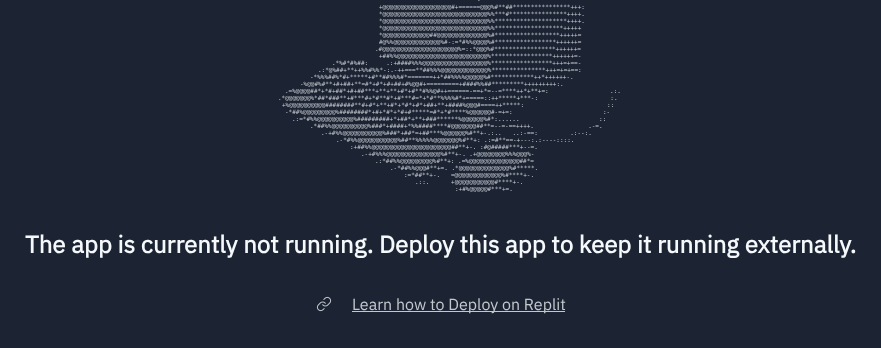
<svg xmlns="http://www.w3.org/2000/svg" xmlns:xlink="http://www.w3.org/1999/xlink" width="881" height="348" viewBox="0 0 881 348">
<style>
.cls-1{font:6px DejaVu Sans Mono;fill:#caced4}
.cls-2{font:bold 24px IBM Plex Sans;fill:#f5f9fc}
.cls-3{font:16px IBM Plex Sans;fill:#c2c8cc}
</style>
<rect width="100%" height="100%" fill="#1c2333"/>
<image xlink:href="image0.png" x="316" y="296" width="16" height="16"/>
<rect fill="#c2c8cc" x="352" y="311" width="213" height="1"/>
<text class="cls-1" x="477" y="2">-</text>
<text class="cls-1"><tspan x="379" y="9">+@@@@@@@@@@@@@@@@@@@#+======@@@%#**##****************+++:</tspan><tspan x="379" y="16">*@@@@@@@@@@@@@@@@@@@@@@@@@@@@@%%***#****************++++.</tspan><tspan x="379" y="23">*@@@@@@@@@@@@@@@@@@@@@@@@@@@@@%%********************++++.</tspan><tspan x="379" y="30">*@@@@@@@@@@@@@@@@@@@@@@@@@@@@@%%*******************+++++</tspan><tspan x="379" y="37">*@@@@@@@@@@@@@##@@@@@@@@@@@@@@%#******************+++++=</tspan><tspan x="379" y="44">#@%%@@@@@@@@@@@@@%#-:=*#%%@@@@%#*****************++++++=</tspan></text>
<text class="cls-1" x="375" y="51">.#@@@@@@@@@@@@@@@@@@@@@%=::*@@@%#*****************++++++=</text>
<text class="cls-1" x="379" y="58">+##%%@@@@@@@@@@@@@@@@@@@@@@@@@%*****************++++++=-</text>
<text class="cls-1" xml:space="preserve" x="332" y="65">.*%#*#%##:     .:+####%%%@@@@@@@@@@@@@@@@@@%*****************+++=+==-</text>
<text class="cls-1" x="318" y="72">.:*@%##+**++%%#%%*-:.-++===**##%%%@@@@@@@@@@@@@%***************+++=+=+==:</text>
<text class="cls-1" x="310" y="79">-*%%%##%*#+*****+#**##%%%#*=======++*##%%%%@@@@@%#************++*++++++-.</text>
<text class="cls-1" x="300" y="86">-%@@#%#**+#+##+**=#*+#*+#+##+#%@@#+=========+####%%##*********+++++++++:.</text>
<text class="cls-1" xml:space="preserve" x="285" y="93">.=%@@@@##*+*#+##*+#+##***+**+**+#*+#**#%%@#++======-==+*=--=****++*+**+=:                 .:.</text>
<text class="cls-1" xml:space="preserve" x="278" y="100">.*@@@@@@@%*##*###**+#***#+*#**#*+#***#=*+*#**%%%%#*+=====::++*****+***-:                    :.</text>
<text class="cls-1" xml:space="preserve" x="282" y="107">+%@@@@@@@@@@########**#+#*+**+#*+*#*+#*+##+**+####%@@@#====++*****:                       ::</text>
<text class="cls-1" xml:space="preserve" x="285" y="114">-*##%@@@@@@@@@%########*+#+*#*+*#+#*****=#*+*#****%@@@@@@#-=+=:                         :-</text>
<text class="cls-1" xml:space="preserve" x="292" y="121">.:=*#%%@@@@@@@@@@%#########+*+##*+**+###******%@@@@@@%#*:......                      ::</text>
<text class="cls-1" xml:space="preserve" x="310" y="128">.*##%%@@@@@@@@@@%###*+####+*%%####****#@@@@@@@##**=--=-==++++.               .-=.</text>
<text class="cls-1" xml:space="preserve" x="321" y="135">.-+#%%@@@@@@@@@@@%###*+##*=+##***%@@@@@@%#**+-.:..   ..:-==:         .:--:.</text>
<text class="cls-1" x="336" y="142">.-*#%%@@@@@@@@@@@%##**%%%%%@@@@@@@%#**+: .:=#**==-+---:.:----::::.</text>
<text class="cls-1" x="350" y="149">:+##%%@@@@@@@@@@@@@@@@@@@@@@##**+-. :#@#####***+--=.</text>
<text class="cls-1" x="361" y="156">.-+#%%%@@@@@@@@@@@@@@@%#**+-. .+@@@@@@@@%%%@@@%-</text>
<text class="cls-1" x="375" y="163">.:*##%%@@@@@@@@@%#**+: .=%@@@@@@@@@@@@@@##*=</text>
<text class="cls-1" x="390" y="170">.-*##%%@@@#**+=. .*@@@@@@@@@@@@@@%#*****.</text>
<text class="cls-1" xml:space="preserve" x="404" y="177">:=*##**+-.   =@@@@@@@@@@@@@%#****+-.</text>
<text class="cls-1" xml:space="preserve" x="415" y="184">.::.      +@@@@@@@@@@@#****+-.</text>
<text class="cls-1" x="455" y="191">:+#%@@@@@#***+=.</text>
<text class="cls-2" x="25" y="253">The app is currently not running. Deploy this app to keep it running externally.</text>
<text class="cls-3" x="352" y="310">Learn how to Deploy on Replit</text>
</svg>
